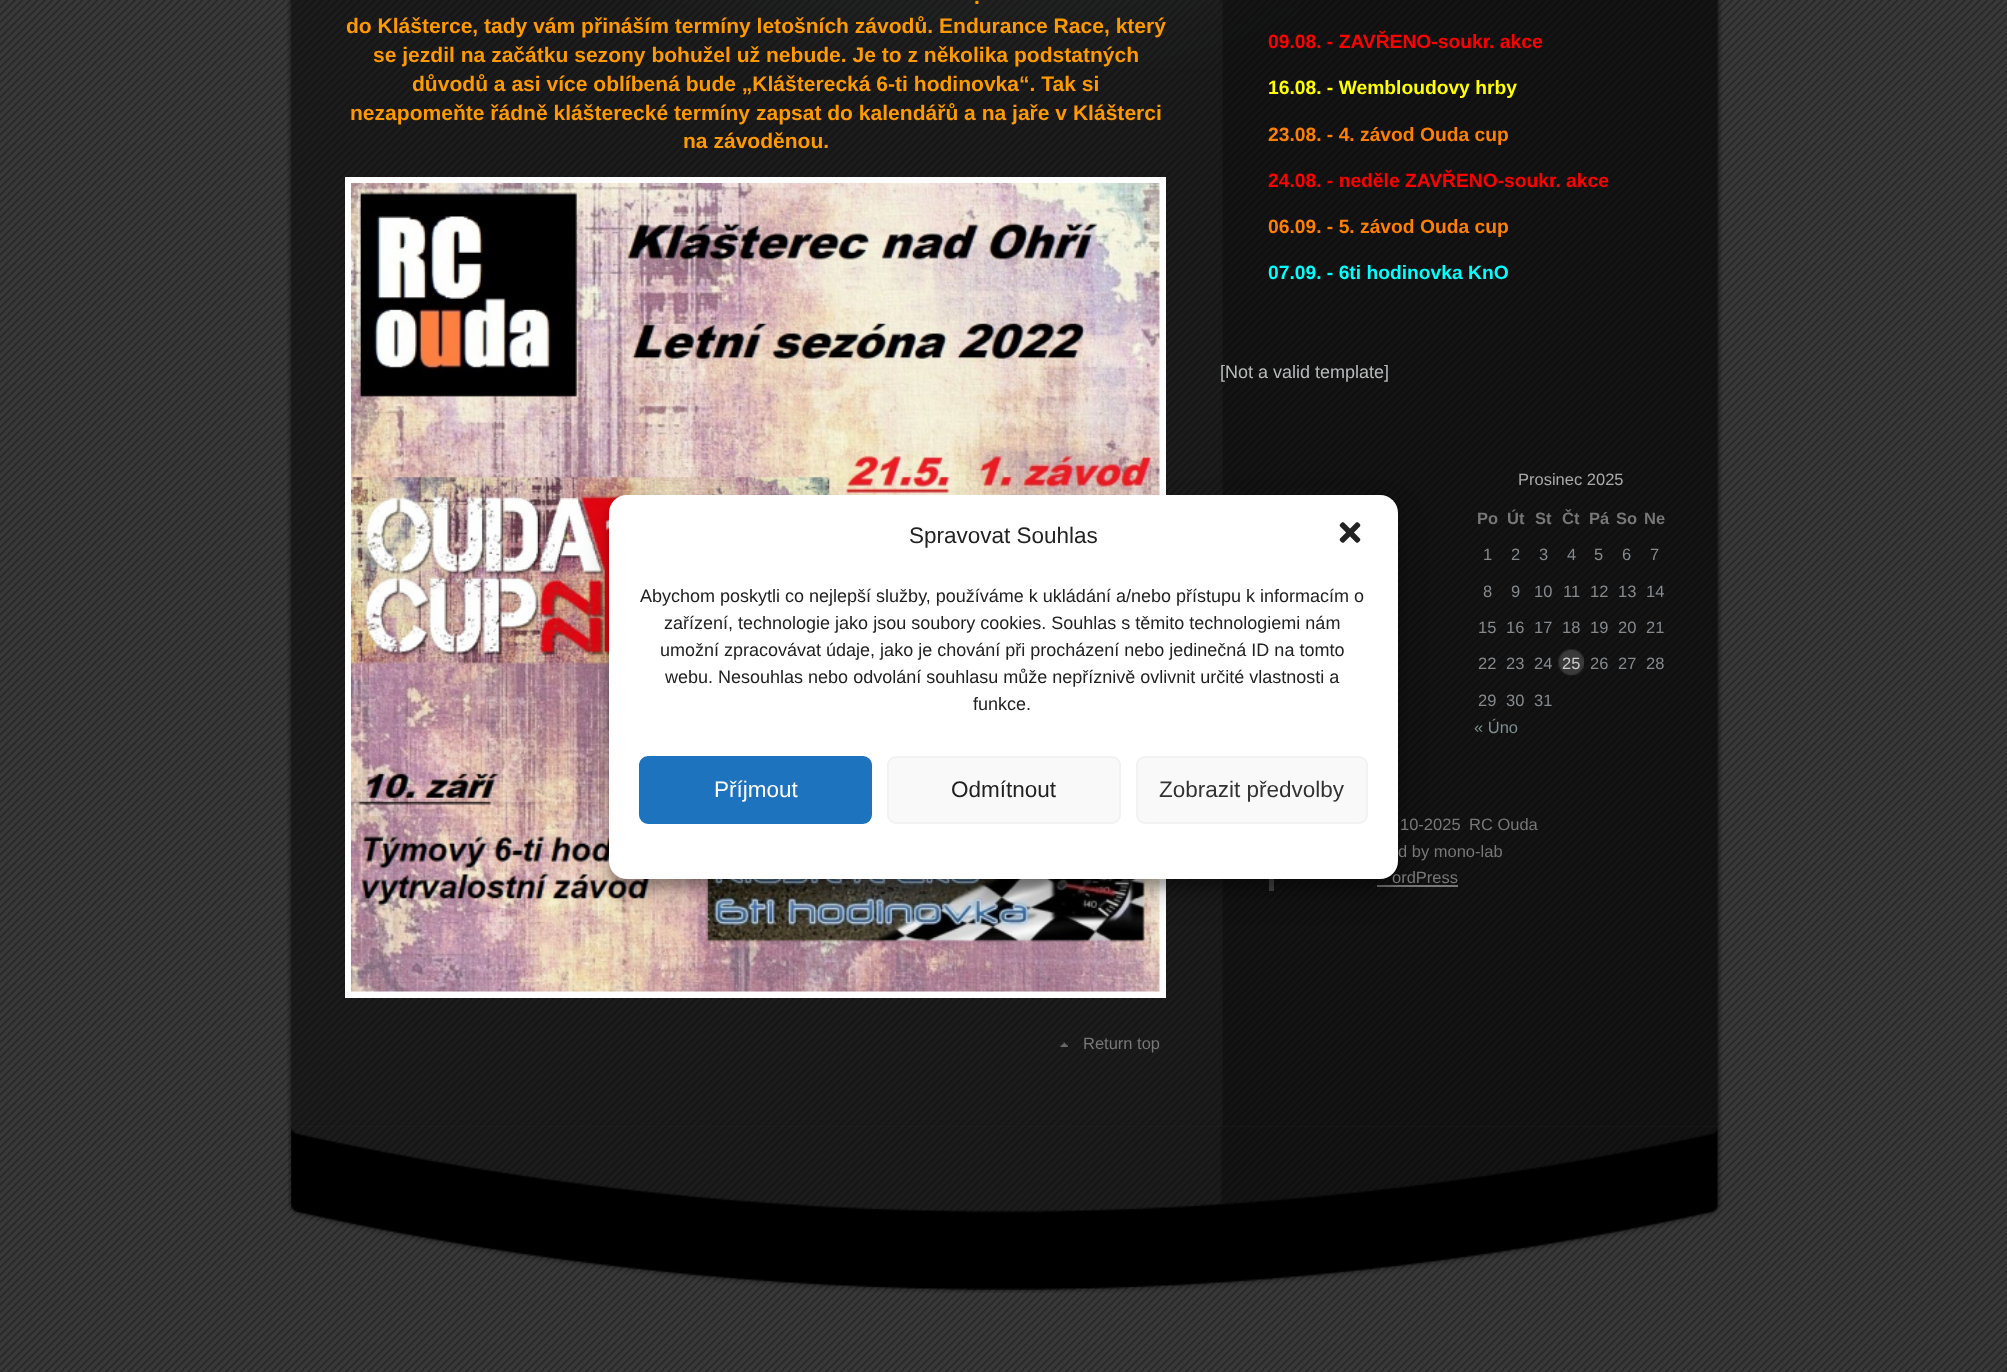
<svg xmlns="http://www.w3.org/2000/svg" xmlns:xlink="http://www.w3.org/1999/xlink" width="2007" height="1372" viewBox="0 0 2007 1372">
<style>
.cls-1{font:bold 21.05px Liberation Sans;fill:#ff9900}
.cls-2{font:16.5px Liberation Sans;fill:#777777}
.cls-3{font:bold 19.25px Liberation Sans;fill:#ff0000}
.cls-4{font:bold 19.25px Liberation Sans;fill:#ffff00}
.cls-5{font:bold 19.25px Liberation Sans;fill:#ff8000}
.cls-6{font:bold 19.25px Liberation Sans;fill:#00ffff}
.cls-7{font:18px Liberation Sans;fill:#b8babb}
.cls-8{font:16.5px Liberation Sans;fill:#aaaaaa}
.cls-9{font:bold 16.5px Liberation Sans;fill:#777777}
.cls-10{font:16.5px Liberation Sans;fill:#868a8d}
.cls-11{font:16.5px Liberation Sans;fill:#cccccc}
.cls-12{font:16.5px Liberation Sans;fill:#7f8e91}
.cls-13{font:22.5px Liberation Sans;fill:#222222}
.cls-14{font:18px Liberation Sans;fill:#222222}
.cls-15{font:22.5px Liberation Sans;fill:#ffffff}
.cls-16{font:22.5px Liberation Sans;fill:#333333}
</style>
<rect width="100%" height="100%" fill="#ffffff"/>
<image xlink:href="image0.png" x="0" y="0" width="2007" height="1372"/>
<image xlink:href="image1.png" x="649" y="0" width="651" height="68"/>
<image xlink:href="image2.png" x="287" y="0" width="1435" height="1127"/>
<rect fill="#ffffff" x="345" y="177" width="821" height="821"/>
<image xlink:href="image3.png" x="351" y="183" width="809" height="809"/>
<image xlink:href="image4.png" x="1060" y="1042" width="8" height="5"/>
<image xlink:href="image5.png" x="1558" y="649" width="26" height="27"/>
<rect fill="#444444" x="1269" y="879" width="5" height="12"/>
<rect fill="#777777" x="1377" y="885" width="81" height="2"/>
<image xlink:href="image6.png" x="288" y="1126" width="1434" height="167"/>
<rect fill="#000000" fill-opacity="0.23" filter="blur(4.5px)" x="609" y="504" width="789" height="384" rx="18"/>
<rect fill="#000000" fill-opacity="0.19" filter="blur(15px)" x="609" y="510" width="789" height="384" rx="18"/>
<text class="cls-1" x="974" y="4">.</text>
<text class="cls-1" x="346" y="33">do Klášterce, tady vám přináším termíny letošních závodů. Endurance Race, který</text>
<text class="cls-1" x="373" y="62">se jezdil na začátku sezony bohužel už nebude. Je to z několika podstatných</text>
<text class="cls-1" x="412" y="91">důvodů a asi více oblíbená bude „Klášterecká 6-ti hodinovka“. Tak si</text>
<text class="cls-1" x="350" y="120">nezapomeňte řádně klášterecké termíny zapsat do kalendářů a na jaře v Klášterci</text>
<text class="cls-1" x="683" y="148">na závoděnou.</text>
<text class="cls-2" x="1083" y="1049">Return top</text>
<text class="cls-3" x="1268" y="48">09.08. - ZAVŘENO-soukr. akce</text>
<text class="cls-4" x="1268" y="94">16.08. - Wembloudovy hrby</text>
<text class="cls-5" x="1268" y="141">23.08. - 4. závod Ouda cup</text>
<text class="cls-3" x="1268" y="187">24.08. - neděle ZAVŘENO-soukr. akce</text>
<text class="cls-5" x="1268" y="233">06.09. - 5. závod Ouda cup</text>
<text class="cls-6" x="1268" y="279">07.09. - 6ti hodinovka KnO</text>
<text class="cls-7" x="1220" y="378">[Not a valid template]</text>
<text class="cls-8" x="1518" y="485">Prosinec 2025</text>
<text class="cls-9" x="1477" y="524">Po</text>
<text class="cls-9" x="1507" y="524">Út</text>
<text class="cls-9" x="1535" y="524">St</text>
<text class="cls-9" x="1562" y="524">Čt</text>
<text class="cls-9" x="1589" y="524">Pá</text>
<text class="cls-9" x="1616" y="524">So</text>
<text class="cls-9" x="1644" y="524">Ne</text>
<text class="cls-10" x="1483" y="560">1</text>
<text class="cls-10" x="1511" y="560">2</text>
<text class="cls-10" x="1539" y="560">3</text>
<text class="cls-10" x="1567" y="560">4</text>
<text class="cls-10" x="1594" y="560">5</text>
<text class="cls-10" x="1622" y="560">6</text>
<text class="cls-10" x="1650" y="560">7</text>
<text class="cls-10" x="1483" y="597">8</text>
<text class="cls-10" x="1511" y="597">9</text>
<text class="cls-10" x="1534" y="597">10</text>
<text class="cls-10" x="1563" y="597">11</text>
<text class="cls-10" x="1590" y="597">12</text>
<text class="cls-10" x="1618" y="597">13</text>
<text class="cls-10" x="1646" y="597">14</text>
<text class="cls-10" x="1478" y="633">15</text>
<text class="cls-10" x="1506" y="633">16</text>
<text class="cls-10" x="1534" y="633">17</text>
<text class="cls-10" x="1562" y="633">18</text>
<text class="cls-10" x="1590" y="633">19</text>
<text class="cls-10" x="1618" y="633">20</text>
<text class="cls-10" x="1646" y="633">21</text>
<text class="cls-10" x="1478" y="669">22</text>
<text class="cls-10" x="1506" y="669">23</text>
<text class="cls-10" x="1534" y="669">24</text>
<text class="cls-11" x="1562" y="669">25</text>
<text class="cls-10" x="1590" y="669">26</text>
<text class="cls-10" x="1618" y="669">27</text>
<text class="cls-10" x="1646" y="669">28</text>
<text class="cls-10" x="1478" y="706">29</text>
<text class="cls-10" x="1506" y="706">30</text>
<text class="cls-10" x="1534" y="706">31</text>
<text class="cls-12" x="1474" y="733">« Úno</text>
<text class="cls-2" x="1400" y="830">10-2025</text>
<text class="cls-2" x="1469" y="830">RC Ouda</text>
<text class="cls-2" x="1398" y="857">d by mono-lab</text>
<text class="cls-2" x="1392" y="883">ordPress</text>
<rect fill="#ffffff" x="609" y="495" width="789" height="384" rx="18"/>
<text class="cls-13" x="909" y="543">Spravovat Souhlas</text>
<image xlink:href="image7.png" x="1339" y="522" width="22" height="21"/>
<text class="cls-14" x="640" y="602">Abychom poskytli co nejlepší služby, používáme k ukládání a/nebo přístupu k informacím o</text>
<text class="cls-14" x="664" y="629">zařízení, technologie jako jsou soubory cookies. Souhlas s těmito technologiemi nám</text>
<text class="cls-14" x="660" y="656">umožní zpracovávat údaje, jako je chování při procházení nebo jedinečná ID na tomto</text>
<text class="cls-14" x="665" y="683">webu. Nesouhlas nebo odvolání souhlasu může nepříznivě ovlivnit určité vlastnosti a</text>
<text class="cls-14" x="973" y="710">funkce.</text>
<rect fill="#1e73be" stroke="#1e73be" stroke-width="2" x="640" y="757" width="231" height="66" rx="8"/>
<text class="cls-15" x="714" y="797">Příjmout</text>
<rect fill="#f9f9f9" stroke="#f2f2f2" stroke-width="2" x="888" y="757" width="232" height="66" rx="8"/>
<text class="cls-13" x="951" y="797">Odmítnout</text>
<rect fill="#f9f9f9" stroke="#f2f2f2" stroke-width="2" x="1137" y="757" width="230" height="66" rx="8"/>
<text class="cls-16" x="1159" y="797">Zobrazit předvolby</text>
</svg>
